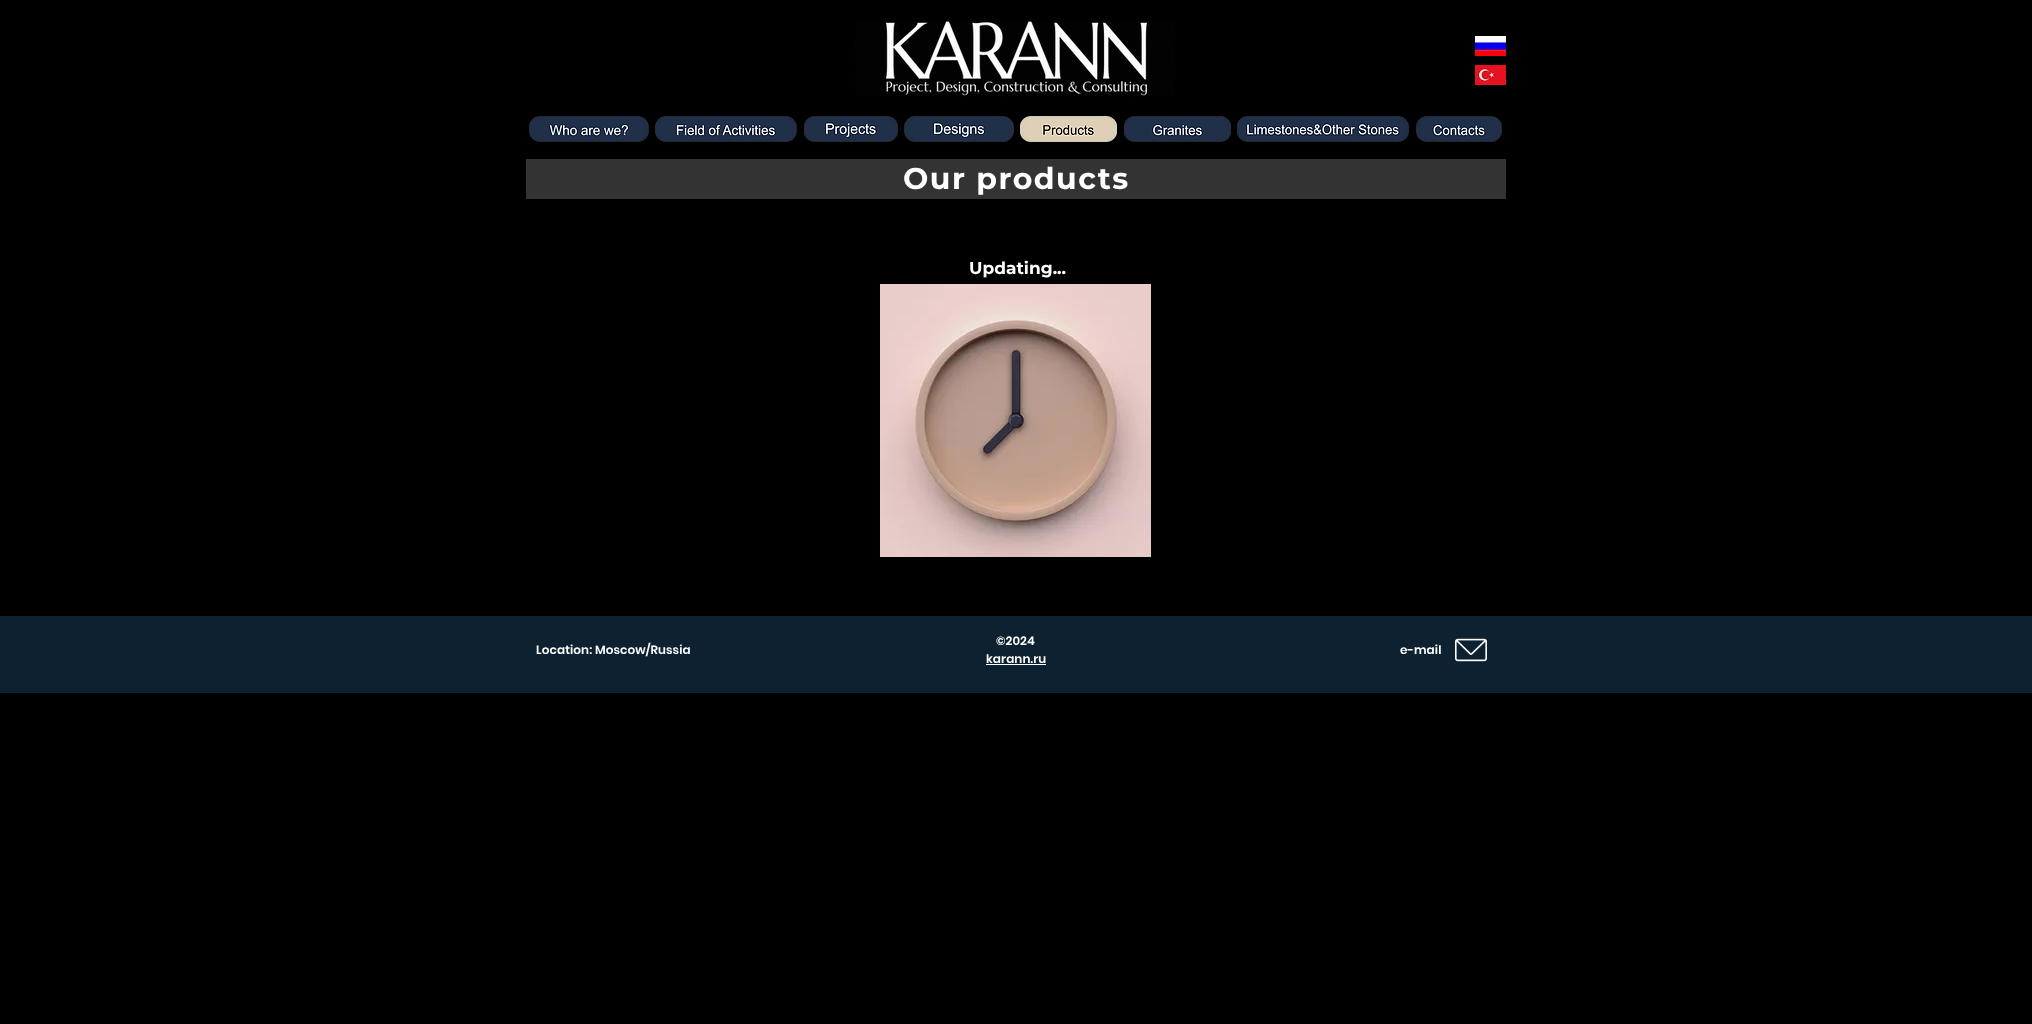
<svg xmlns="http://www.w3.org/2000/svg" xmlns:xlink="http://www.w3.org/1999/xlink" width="2032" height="1024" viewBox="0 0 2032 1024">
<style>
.cls-1{font:bold 30px Montserrat;letter-spacing:1.5px;fill:#ffffff}
.cls-2{font:bold 17px Montserrat;fill:#ffffff}
.cls-3{font:600 12px Poppins;letter-spacing:0.1px;fill:#ffffff}
</style>
<rect width="100%" height="100%" fill="#000000"/>
<image xlink:href="image0.png" x="855" y="18" width="320" height="79"/>
<image xlink:href="image1.png" x="1475" y="36" width="31" height="20"/>
<image xlink:href="image2.png" x="1475" y="65" width="31" height="20"/>
<image xlink:href="image3.png" x="529" y="116" width="120" height="26"/>
<image xlink:href="image4.png" x="655" y="116" width="142" height="26"/>
<image xlink:href="image5.png" x="804" y="116" width="94" height="26"/>
<image xlink:href="image6.png" x="904" y="116" width="110" height="26"/>
<image xlink:href="image7.png" x="1020" y="116" width="97" height="26"/>
<image xlink:href="image8.png" x="1124" y="116" width="107" height="26"/>
<image xlink:href="image9.png" x="1237" y="116" width="172" height="26"/>
<image xlink:href="image10.png" x="1416" y="116" width="86" height="26"/>
<rect fill="#333333" x="526" y="159" width="980" height="40"/>
<image xlink:href="image11.png" x="880" y="284" width="271" height="273"/>
<rect fill="#0d2130" x="0" y="616" width="2032" height="77"/>
<rect fill="#ffffff" x="986" y="664" width="60" height="1"/>
<image xlink:href="image12.png" x="1455" y="638" width="32" height="24"/>
<text class="cls-1" x="903" y="189">Our products</text>
<text class="cls-2" x="969" y="274">Updating...</text>
<text class="cls-3" x="536" y="654">Location: Moscow/Russia</text>
<text class="cls-3" x="996" y="645">©2024</text>
<text class="cls-3" x="986" y="663">karann.ru</text>
<text class="cls-3" x="1400" y="654">e-mail</text>
</svg>
